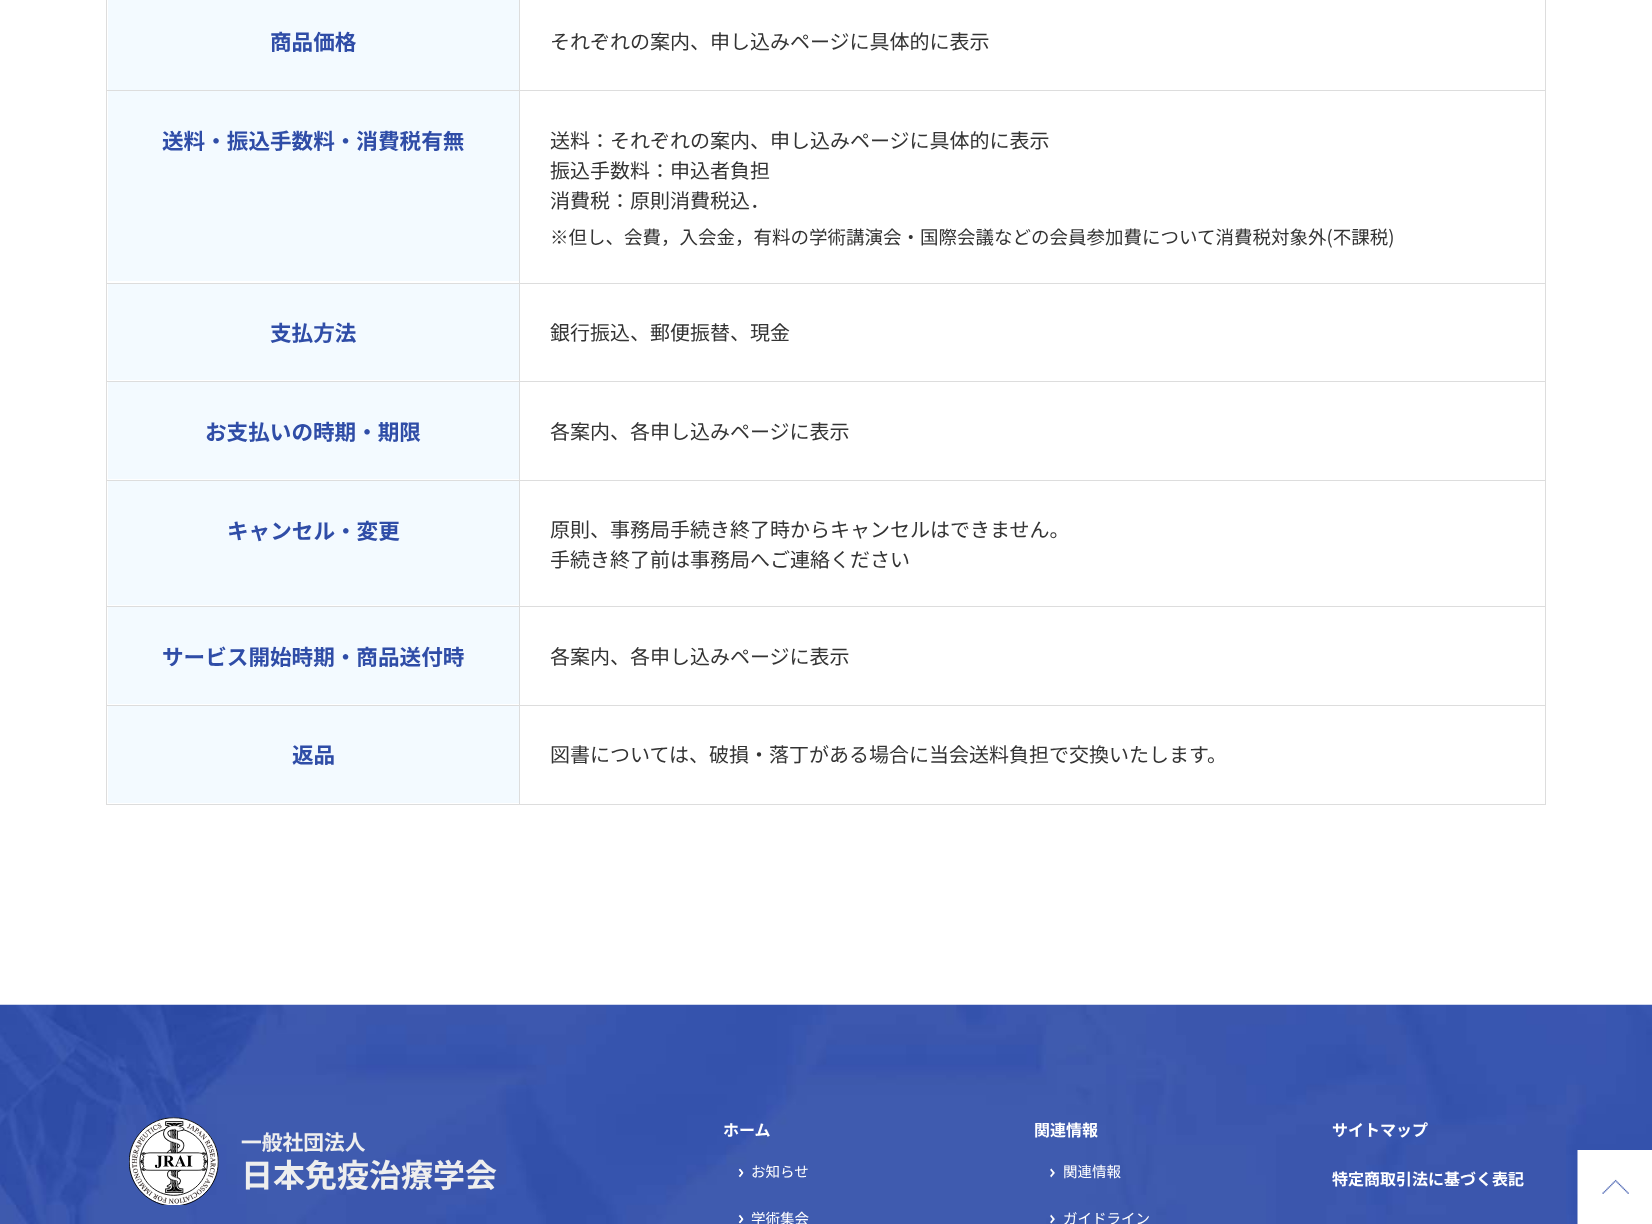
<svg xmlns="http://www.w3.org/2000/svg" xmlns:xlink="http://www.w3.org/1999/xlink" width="1652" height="1224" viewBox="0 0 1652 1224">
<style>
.cls-1{font:bold 21.6px Noto Sans JP;fill:#2f4da7}
.cls-2{font:20px Noto Sans JP;fill:#333333}
.cls-3{font:18.5px Noto Sans JP;fill:#333333}
.cls-4{font:bold 20.75px Noto Sans JP;fill:#eeeeee}
.cls-5{font:bold 32px Noto Sans JP;fill:#eeeeee}
.cls-6{font:bold 16px Noto Sans JP;fill:#ffffff}
.cls-7{font:14.5px Noto Sans JP;fill:#ffffff}
</style>
<rect width="100%" height="100%" fill="#ffffff"/>
<rect fill="#dddddd" x="106" y="0" width="1" height="805"/>
<rect fill="#f3faff" x="108" y="0" width="411" height="90"/>
<rect fill="#dddddd" x="1545" y="0" width="1" height="805"/>
<rect fill="#dddddd" x="519" y="804" width="1027" height="1"/>
<rect fill="#dddddd" x="519" y="705" width="1" height="100"/>
<rect fill="#dddddd" x="519" y="705" width="1027" height="1"/>
<rect fill="#dddddd" x="519" y="606" width="1" height="100"/>
<rect fill="#dddddd" x="519" y="606" width="1027" height="1"/>
<rect fill="#dddddd" x="519" y="480" width="1" height="128"/>
<rect fill="#dddddd" x="519" y="480" width="1027" height="1"/>
<rect fill="#dddddd" x="519" y="381" width="1" height="100"/>
<rect fill="#dddddd" x="519" y="381" width="1027" height="1"/>
<rect fill="#dddddd" x="519" y="283" width="1" height="100"/>
<rect fill="#dddddd" x="519" y="283" width="1027" height="1"/>
<rect fill="#dddddd" x="519" y="90" width="1" height="194"/>
<rect fill="#dddddd" x="519" y="90" width="1027" height="1"/>
<rect fill="#dddddd" x="519" y="0" width="1" height="91"/>
<rect fill="#dddddd" x="106" y="90" width="414" height="1"/>
<rect fill="#f3faff" x="108" y="91" width="411" height="190"/>
<rect fill="#dddddd" x="106" y="283" width="414" height="1"/>
<rect fill="#f3faff" x="108" y="284" width="411" height="96"/>
<rect fill="#dddddd" x="106" y="381" width="414" height="1"/>
<rect fill="#f3faff" x="108" y="382" width="411" height="97"/>
<rect fill="#dddddd" x="106" y="480" width="414" height="1"/>
<rect fill="#f3faff" x="108" y="481" width="411" height="124"/>
<rect fill="#dddddd" x="106" y="606" width="414" height="1"/>
<rect fill="#f3faff" x="108" y="607" width="411" height="97"/>
<rect fill="#dddddd" x="106" y="705" width="414" height="1"/>
<rect fill="#f3faff" x="108" y="706" width="411" height="97"/>
<rect fill="#dddddd" x="106" y="804" width="414" height="1"/>
<image xlink:href="image0.png" x="0" y="1004" width="1652" height="220"/>
<image xlink:href="image1.png" x="129" y="1117" width="90" height="88"/>
<image xlink:href="image2.png" x="738" y="1168" width="6" height="10"/>
<image xlink:href="image3.png" x="738" y="1214" width="6" height="10"/>
<image xlink:href="image4.png" x="1050" y="1168" width="5" height="10"/>
<image xlink:href="image5.png" x="1050" y="1214" width="5" height="10"/>
<image xlink:href="image6.png" x="1577" y="1150" width="75" height="74"/>
<text class="cls-1" x="270" y="50">商品価格</text>
<text class="cls-2" x="550" y="49">それぞれの案内、申し込みページに具体的に表示</text>
<text class="cls-1" x="162" y="149">送料・振込手数料・消費税有無</text>
<text class="cls-2"><tspan x="550" y="148">送料：それぞれの案内、申し込みページに具体的に表示</tspan><tspan x="550" y="178">振込手数料：申込者負担</tspan><tspan x="550" y="208">消費税：原則消費税込．</tspan></text>
<text class="cls-3" x="550" y="244">※但し、会費，入会金，有料の学術講演会・国際会議などの会員参加費について消費税対象外(不課税)</text>
<text class="cls-1" x="270" y="341">支払方法</text>
<text class="cls-2" x="550" y="340">銀行振込、郵便振替、現金</text>
<text class="cls-1" x="205" y="440">お支払いの時期・期限</text>
<text class="cls-2" x="550" y="439">各案内、各申し込みページに表示</text>
<text class="cls-1" x="227" y="539">キャンセル・変更</text>
<text class="cls-2"><tspan x="550" y="537">原則、事務局手続き終了時からキャンセルはできません。</tspan><tspan x="550" y="567">手続き終了前は事務局へご連絡ください</tspan></text>
<text class="cls-1" x="162" y="665">サービス開始時期・商品送付時</text>
<text class="cls-2" x="550" y="664">各案内、各申し込みページに表示</text>
<text class="cls-1" x="292" y="763">返品</text>
<text class="cls-2" x="550" y="762">図書については、破損・落丁がある場合に当会送料負担で交換いたします。</text>
<text class="cls-4" x="241" y="1150">一般社団法人</text>
<text class="cls-5" x="241" y="1187">日本免疫治療学会</text>
<text class="cls-6" x="723" y="1136">ホーム</text>
<text class="cls-7" x="751" y="1177">お知らせ</text>
<text class="cls-7" x="751" y="1224">学術集会</text>
<text class="cls-6" x="1034" y="1136">関連情報</text>
<text class="cls-7" x="1063" y="1177">関連情報</text>
<text class="cls-7" x="1063" y="1224">ガイドライン</text>
<text class="cls-6" x="1332" y="1136">サイトマップ</text>
<text class="cls-6" x="1332" y="1185">特定商取引法に基づく表記</text>
</svg>
